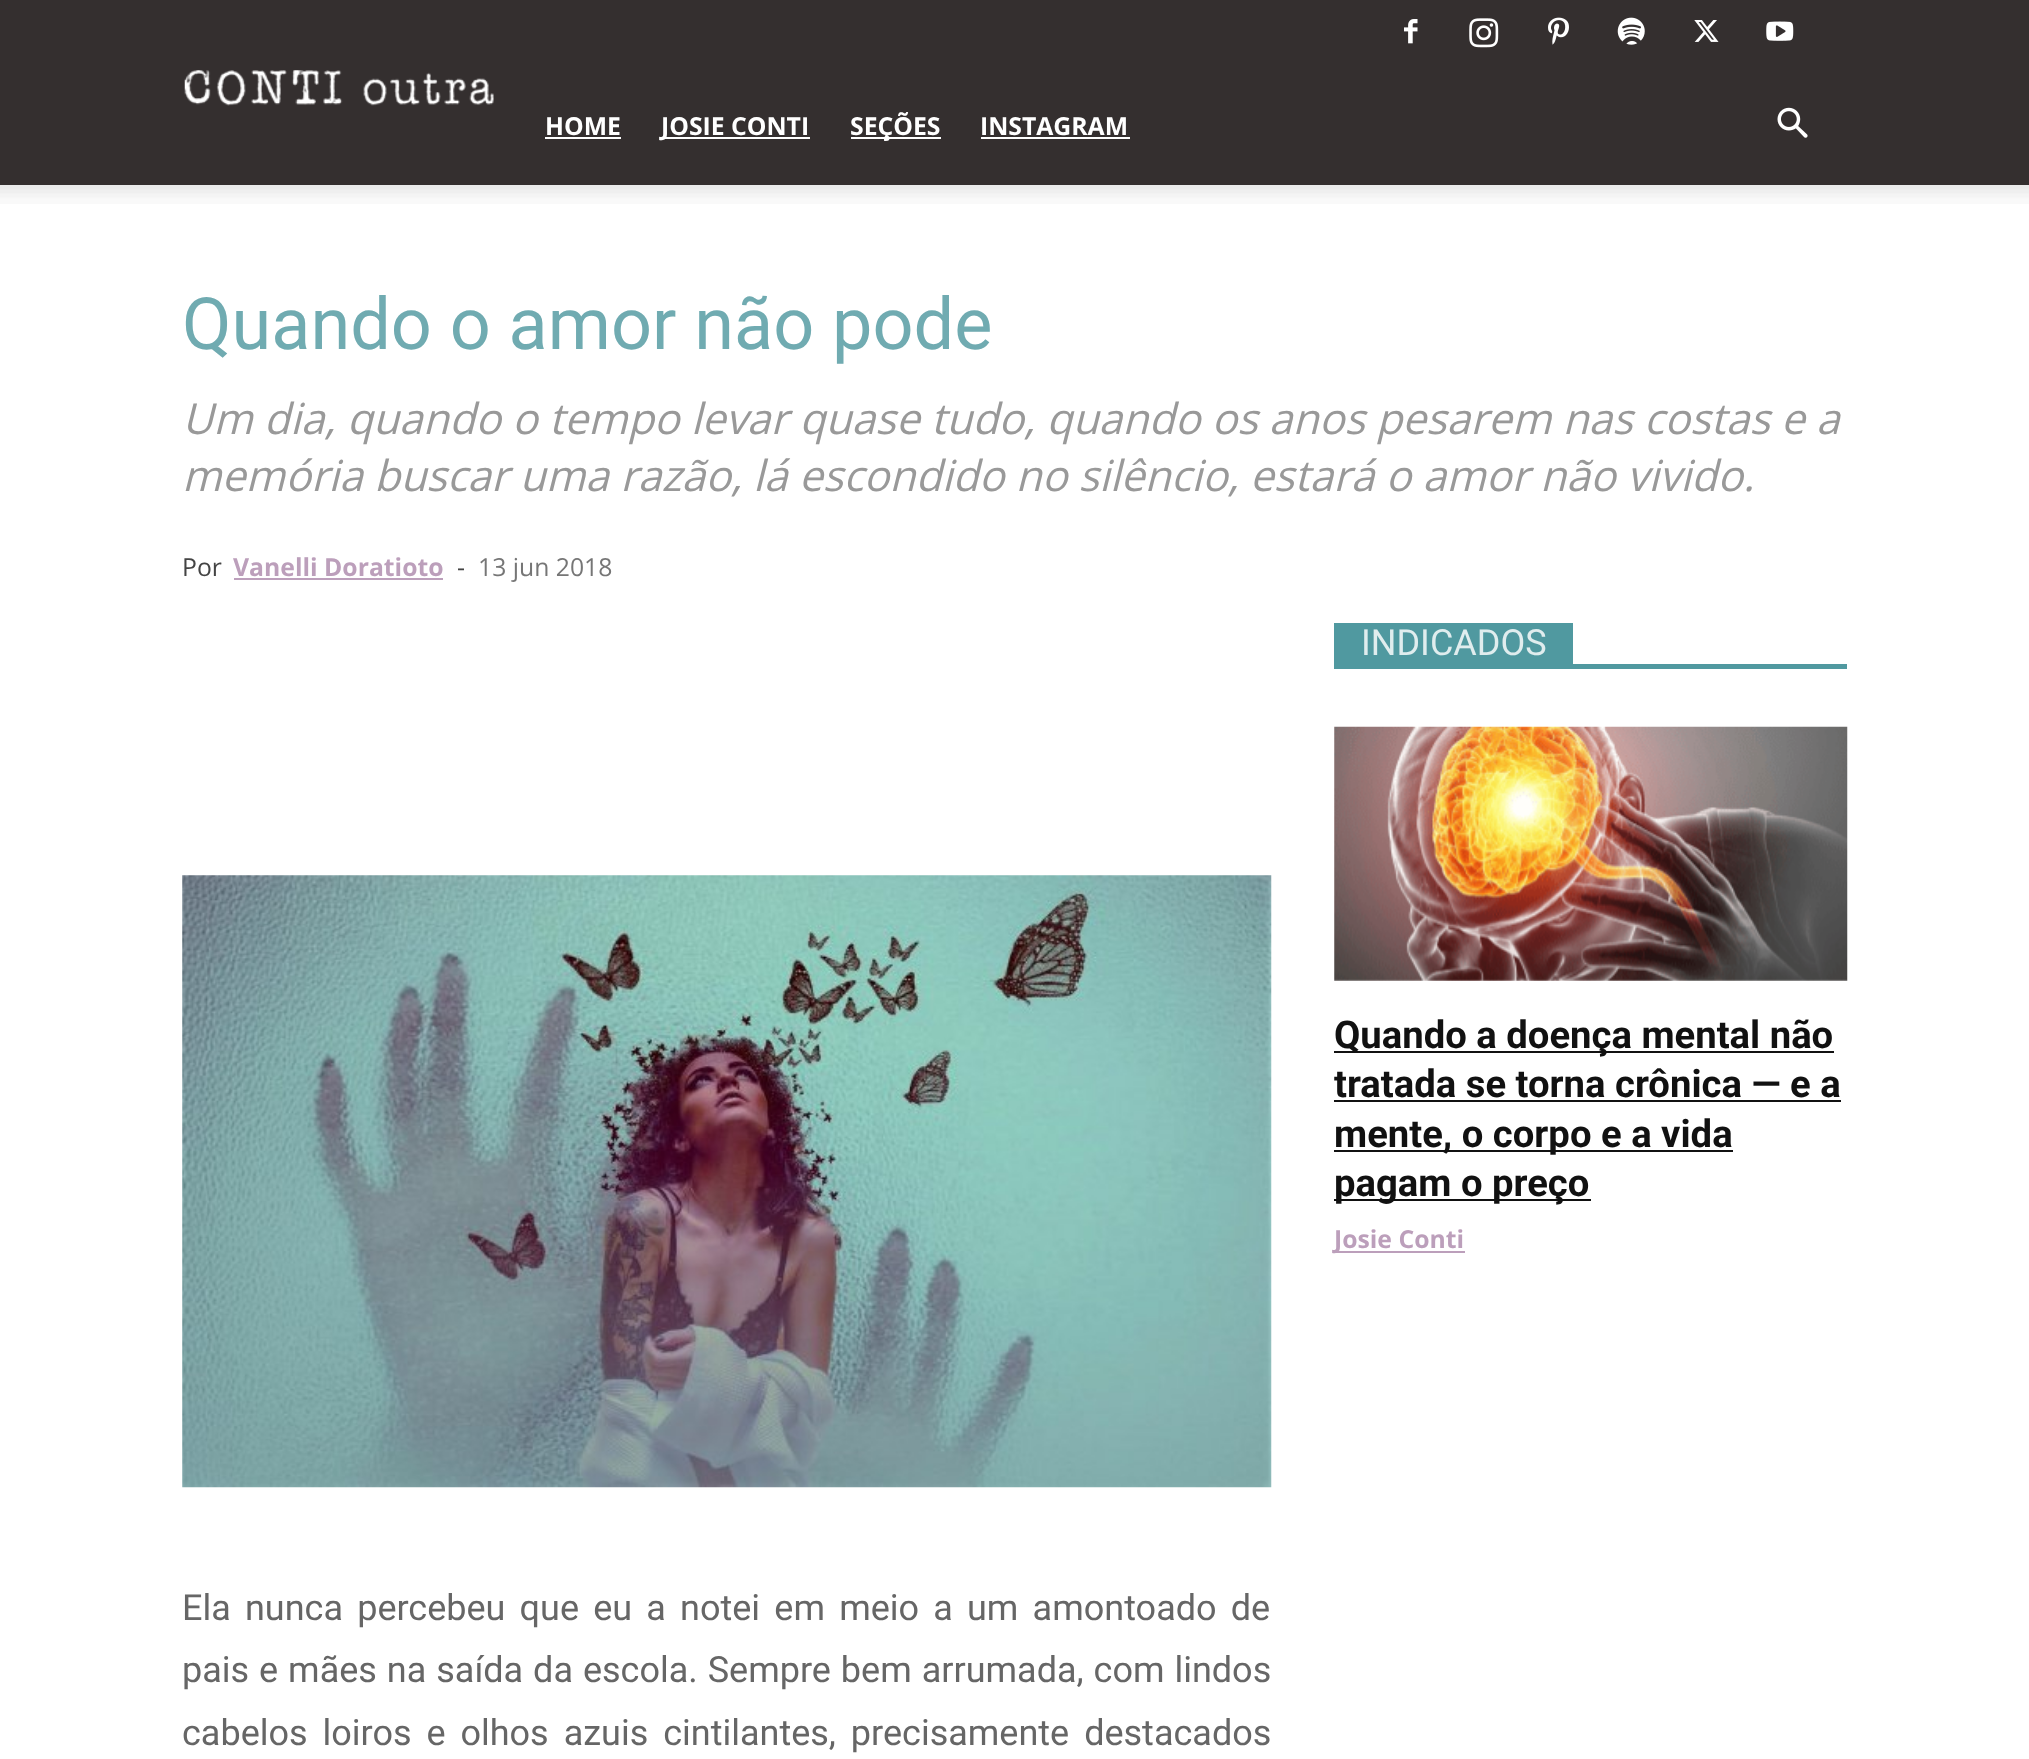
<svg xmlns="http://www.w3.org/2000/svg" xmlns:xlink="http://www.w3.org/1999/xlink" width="2029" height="1759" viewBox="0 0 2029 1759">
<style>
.cls-1{font:bold 24.75px Open Sans;fill:#ffffff}
.cls-2{font:72px Roboto;fill:#70abb1}
.cls-3{font:italic 42.75px Open Sans;fill:#999999}
.cls-4{font:24.75px Open Sans;fill:#444444}
.cls-5{font:bold 24.75px Open Sans;fill:#bc9fbb}
.cls-6{font:24.75px Open Sans;fill:#767676}
.cls-7{font:36px Roboto;fill:#e0edee}
.cls-8{font:bold 38.25px Roboto;fill:#111111}
.cls-9{font:36px Roboto;fill:#666666}
</style>
<rect width="100%" height="100%" fill="#ffffff"/>
<rect fill="#342f2f" x="0" y="0" width="2029" height="185"/>
<image xlink:href="image0.png" x="1404" y="19" width="14" height="25"/>
<image xlink:href="image1.png" x="1469" y="18" width="30" height="30"/>
<image xlink:href="image2.png" x="1548" y="17" width="21" height="28"/>
<image xlink:href="image3.png" x="1617" y="17" width="28" height="28"/>
<image xlink:href="image4.png" x="1694" y="20" width="25" height="22"/>
<image xlink:href="image5.png" x="1766" y="21" width="28" height="20"/>
<image xlink:href="image6.png" x="184" y="70" width="310" height="36"/>
<rect fill="#ffffff" x="545" y="137" width="76" height="2"/>
<rect fill="#ffffff" x="662" y="137" width="148" height="2"/>
<rect fill="#ffffff" x="851" y="137" width="90" height="2"/>
<rect fill="#ffffff" x="981" y="137" width="149" height="2"/>
<image xlink:href="image7.png" x="1777" y="107" width="31" height="31"/>
<image xlink:href="image8.png" x="0" y="185" width="2029" height="19"/>
<rect fill="#bc9fbb" x="234" y="578" width="209" height="2"/>
<rect fill="#5099a0" x="1334" y="664" width="513" height="5"/>
<rect fill="#5099a0" x="1334" y="623" width="239" height="41"/>
<image xlink:href="image9.png" x="1334" y="726" width="514" height="255"/>
<rect fill="#111111" x="1334" y="1051" width="500" height="2"/>
<rect fill="#111111" x="1334" y="1100" width="507" height="2"/>
<rect fill="#111111" x="1334" y="1150" width="399" height="2"/>
<rect fill="#111111" x="1334" y="1199" width="257" height="2"/>
<rect fill="#bc9fbb" x="1334" y="1251" width="131" height="2"/>
<image xlink:href="image10.png" x="182" y="875" width="1090" height="613"/>
<text class="cls-1" x="545" y="135">HOME</text>
<text class="cls-1" x="661" y="135">JOSIE CONTI</text>
<text class="cls-1" x="850" y="135">SEÇÕES</text>
<text class="cls-1" x="980" y="135">INSTAGRAM</text>
<text class="cls-2" x="182" y="349">Quando o amor não pode</text>
<text class="cls-3"><tspan x="182" y="434">Um dia, quando o tempo levar quase tudo, quando os anos pesarem nas costas e a</tspan><tspan x="182" y="491">memória buscar uma razão, lá escondido no silêncio, estará o amor não vivido.</tspan></text>
<text class="cls-4" x="182" y="576">Por</text>
<text class="cls-5" x="233" y="576">Vanelli Doratioto</text>
<text class="cls-4" x="457" y="576">-</text>
<text class="cls-6" x="478" y="576">13 jun 2018</text>
<text class="cls-7" x="1361" y="655">INDICADOS</text>
<text class="cls-8"><tspan x="1334" y="1048">Quando a doença mental não</tspan><tspan x="1334" y="1097">tratada se torna crônica — e a</tspan><tspan x="1334" y="1147">mente, o corpo e a vida</tspan><tspan x="1334" y="1196">pagam o preço</tspan></text>
<text class="cls-5" x="1334" y="1248">Josie Conti</text>
<text class="cls-9"><tspan x="182" y="1620" word-spacing="5.25">Ela nunca percebeu que eu a notei em meio a um amontoado de</tspan><tspan x="182" y="1682" word-spacing="1">pais e mães na saída da escola. Sempre bem arrumada, com lindos</tspan><tspan x="182" y="1745" word-spacing="6">cabelos loiros e olhos azuis cintilantes, precisamente destacados</tspan></text>
</svg>
